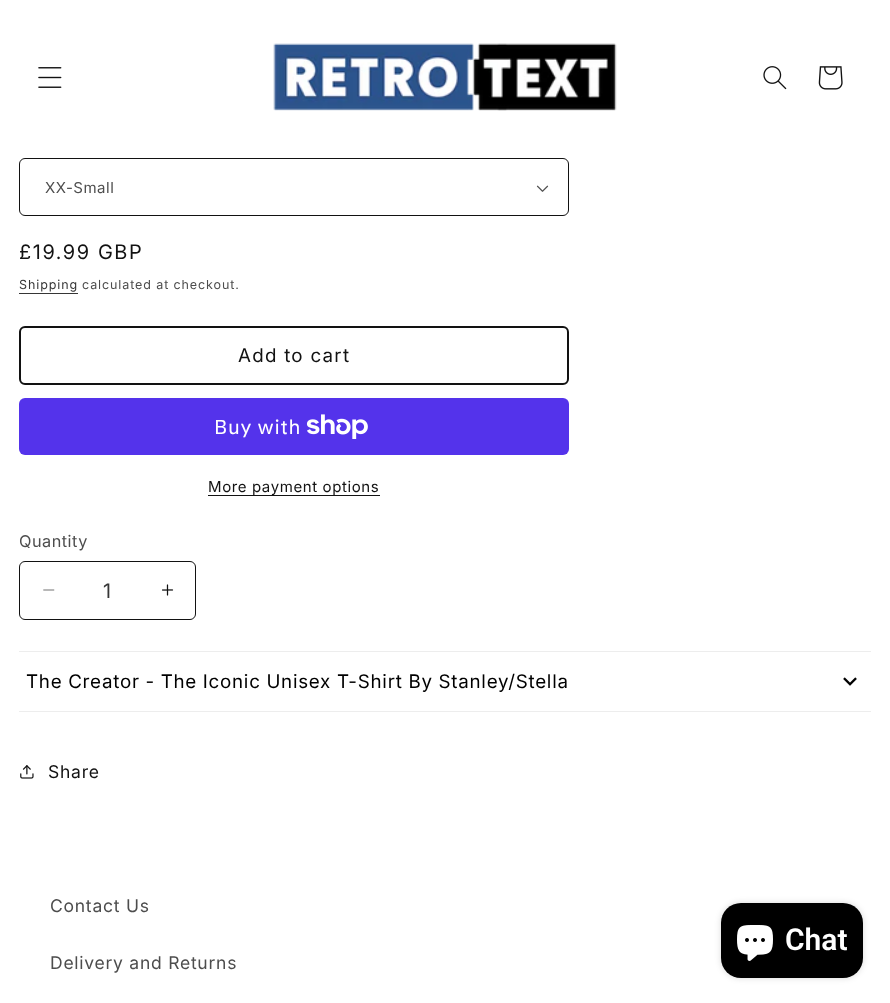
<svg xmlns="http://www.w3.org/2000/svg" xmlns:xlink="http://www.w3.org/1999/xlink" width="890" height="1003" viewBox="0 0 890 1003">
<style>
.cls-1{font:15px 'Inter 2';letter-spacing:0.5px;fill:#4d4d4d}
.cls-2{font:20px Inter;letter-spacing:1.6px;fill:#121212}
.cls-3{font:12.5px 'Inter 2';letter-spacing:0.9px;fill:#363636}
.cls-4{font:12.5px 'Inter 2';letter-spacing:0.9px;fill:#4d4d4d}
.cls-5{font:18.75px 'Inter 2';letter-spacing:1.25px;fill:#121212}
.cls-6{font:20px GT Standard;letter-spacing:0.75px;fill:#ffffff}
.cls-7{font:15px 'Inter 2';letter-spacing:0.6px;fill:#121212}
.cls-8{font:16.25px 'Inter 2';letter-spacing:0.5px;fill:#4d4d4d}
.cls-9{font:20px Inter;fill:#363636}
.cls-10{font:18.75px 'Inter 2';letter-spacing:0.75px;fill:#000000}
.cls-11{font:17.5px 'Inter 2';letter-spacing:0.75px;fill:#121212}
.cls-12{font:17.5px 'Inter 2';letter-spacing:0.75px;fill:#4d4d4d}
.cls-13{font:600 30px Roboto;fill:#ffffff}
</style>
<rect width="100%" height="100%" fill="#ffffff"/>
<image xlink:href="image0.png" x="38" y="67" width="24" height="21"/>
<image xlink:href="image1.png" x="273" y="43" width="344" height="68"/>
<image xlink:href="image2.png" x="763" y="66" width="24" height="24"/>
<image xlink:href="image3.png" x="818" y="66" width="25" height="24"/>
<image xlink:href="image4.png" x="536" y="185" width="13" height="7"/>
<rect fill="none" stroke="#121212" x="19.5" y="158.5" width="549" height="57" rx="5.5"/>
<rect fill="#363636" x="19" y="293" width="59" height="1"/>
<rect fill="none" stroke="#121212" stroke-width="2" x="20" y="327" width="548" height="57" rx="5"/>
<rect fill="#5433eb" x="19" y="398" width="550" height="57" rx="6"/>
<image xlink:href="image5.png" x="306" y="414" width="62" height="25"/>
<rect fill="#121212" x="208" y="495" width="172" height="1"/>
<image xlink:href="image6.png" x="43" y="589" width="12" height="2"/>
<image xlink:href="image7.png" x="162" y="584" width="12" height="12"/>
<rect fill="none" stroke="#121212" x="19.5" y="561.5" width="176" height="58" rx="5.5"/>
<rect fill="#ededed" x="19" y="711" width="852" height="1"/>
<rect fill="#ededed" x="19" y="651" width="852" height="1"/>
<image xlink:href="image8.png" x="843" y="677" width="14" height="9"/>
<image xlink:href="image9.png" x="20" y="765" width="14" height="14"/>
<rect fill="#000000" fill-opacity="0.15" filter="blur(3px)" x="721" y="903" width="142" height="75" rx="20"/>
<rect fill="#000000" x="721" y="903" width="142" height="75" rx="20"/>
<image xlink:href="image10.png" x="737" y="925" width="36" height="36"/>
<text class="cls-1" x="45" y="193">XX-Small</text>
<text class="cls-2" x="19" y="259">£19.99 GBP</text>
<text class="cls-3" x="19" y="289">Shipping</text>
<text class="cls-4" x="82" y="289">calculated at checkout.</text>
<text class="cls-5" x="238" y="362">Add to cart</text>
<text class="cls-6" x="214" y="434">Buy with</text>
<text class="cls-7" x="208" y="492">More payment options</text>
<text class="cls-8" x="19" y="547">Quantity</text>
<text class="cls-9" x="103" y="598">1</text>
<text class="cls-10" x="26" y="688" word-spacing="-0.25">The Creator - The Iconic Unisex T-Shirt By Stanley/Stella</text>
<text class="cls-11" x="48" y="778">Share</text>
<text class="cls-12" x="50" y="912">Contact Us</text>
<text class="cls-12" x="50" y="969">Delivery and Returns</text>
<text class="cls-13" x="785" y="950">Chat</text>
</svg>
